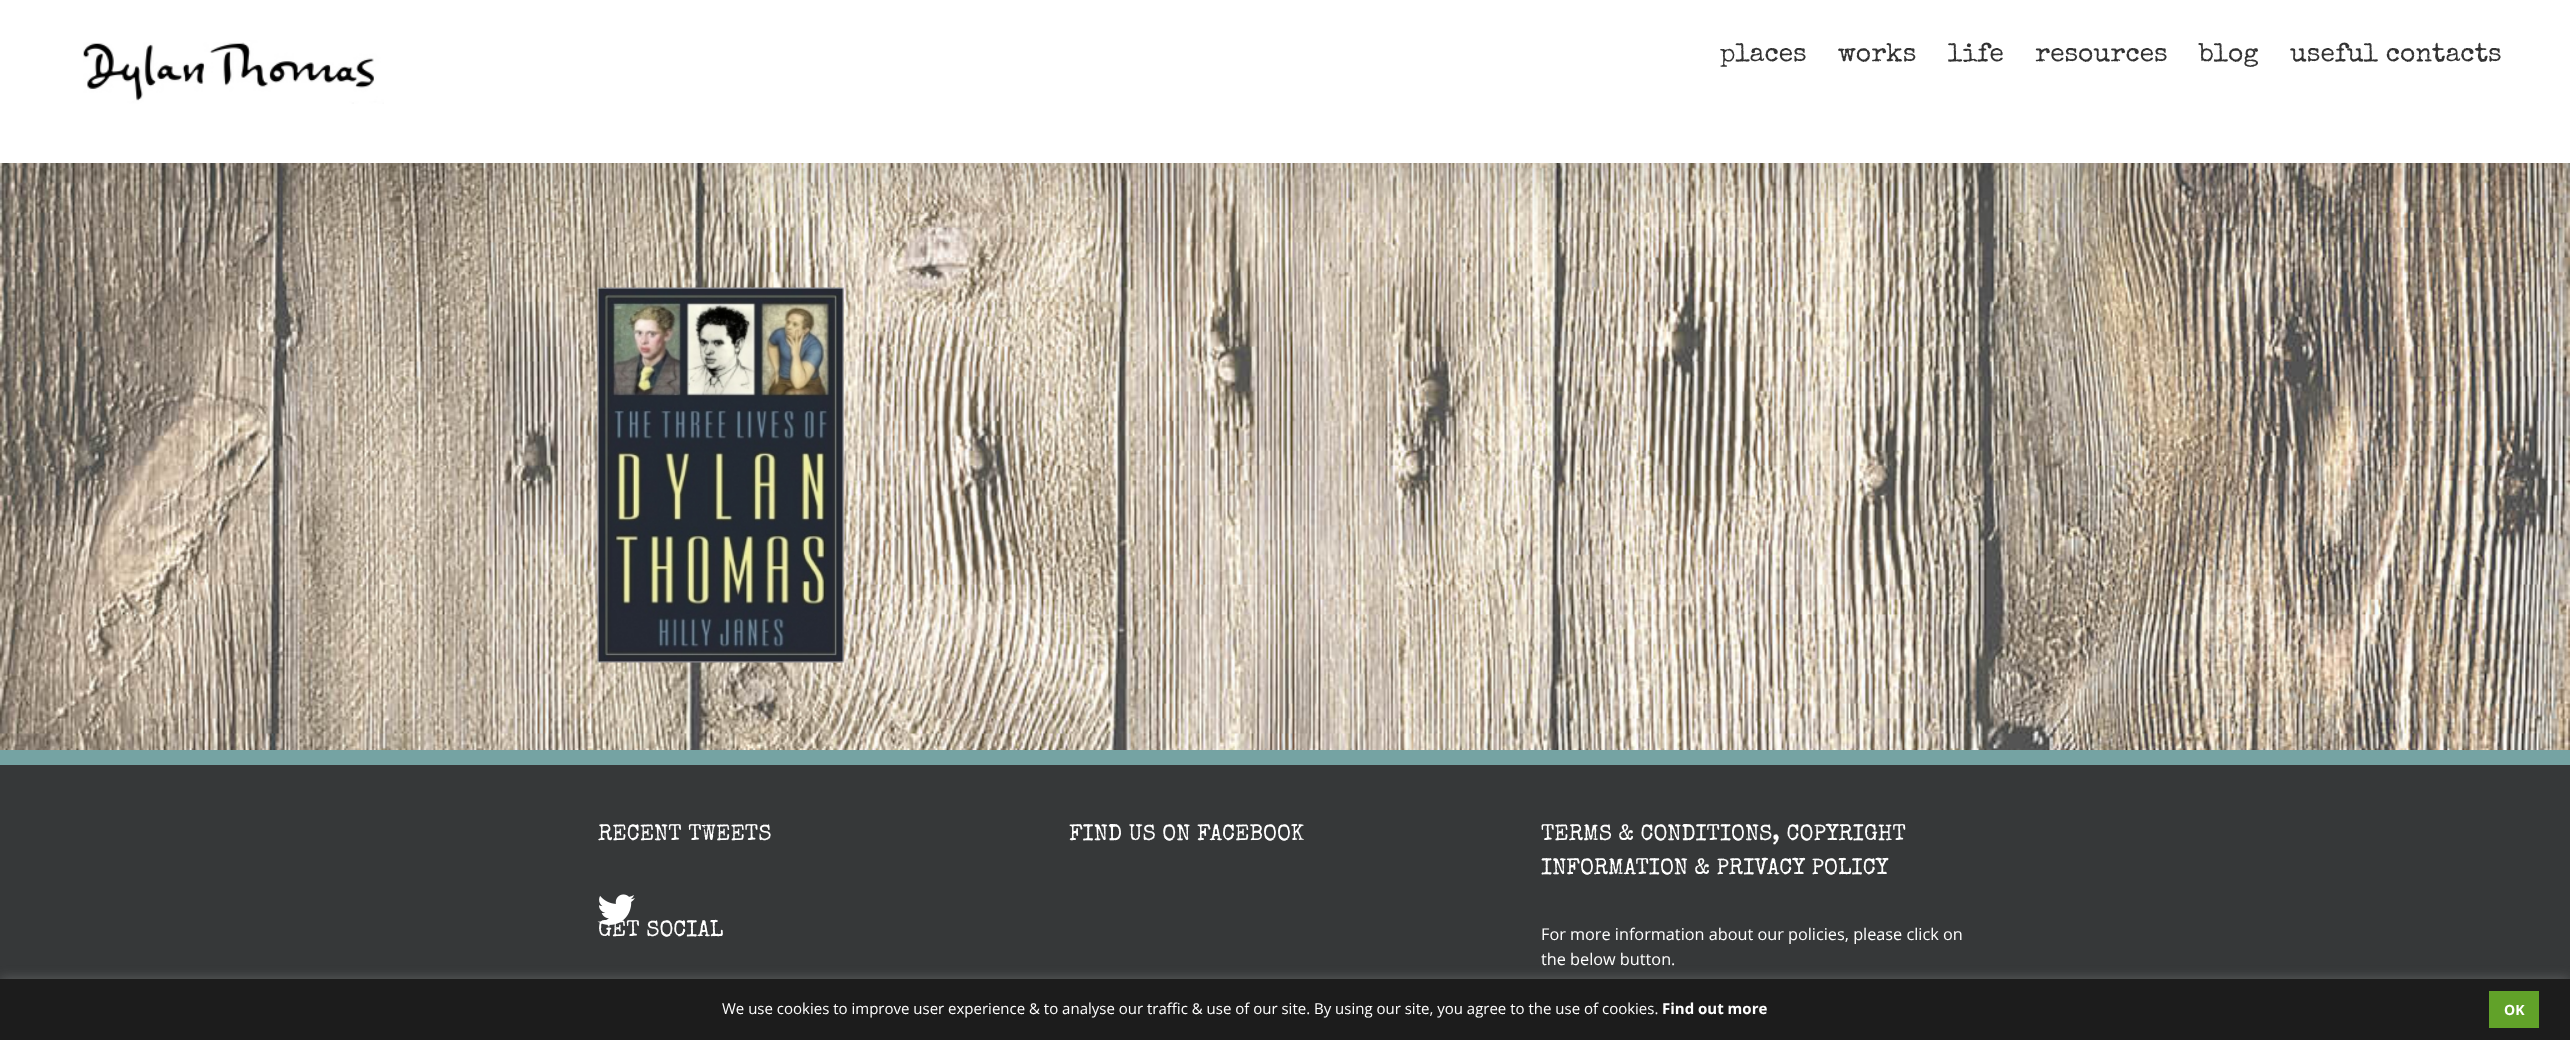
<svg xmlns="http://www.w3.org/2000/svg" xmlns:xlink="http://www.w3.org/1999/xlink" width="2570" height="1040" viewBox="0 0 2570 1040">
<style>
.cls-1{font:26.25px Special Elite;fill:#333333}
.cls-2{font:22.5px Special Elite;fill:#ffffff}
.cls-3{font:16.25px Open Sans;fill:#ffffff}
.cls-4{font:15px Open Sans;fill:#ffffff}
.cls-5{font:bold 15px Open Sans;fill:#ffffff}
.cls-6{font:bold 14px Open Sans;fill:#ffffff}
</style>
<rect width="100%" height="100%" fill="#ffffff"/>
<image xlink:href="image1.png" x="0" y="163" width="2570" height="587"/>
<rect fill="#000000" fill-opacity="0.14" filter="blur(31px)" x="3" y="15" width="2565" height="158"/>
<rect fill="#ffffff" x="0" y="0" width="2570" height="163"/>
<image xlink:href="image0.png" x="83" y="40" width="301" height="64"/>
<image xlink:href="image2.png" x="597" y="287" width="247" height="376"/>
<rect fill="#363839" x="0" y="765" width="2570" height="214"/>
<rect fill="#75a3a3" x="0" y="750" width="2570" height="15"/>
<rect fill="#acabab" fill-opacity="0.3" filter="blur(6px)" x="0" y="978" width="2570" height="61"/>
<rect fill="#1c1c1c" x="0" y="979" width="2570" height="61"/>
<rect fill="#61a229" x="2489" y="991" width="50" height="37"/>
<text class="cls-1" x="1720" y="61">places</text>
<text class="cls-1" x="1838" y="61">works</text>
<text class="cls-1" x="1948" y="61">life</text>
<text class="cls-1" x="2035" y="61">resources</text>
<text class="cls-1" x="2199" y="61">blog</text>
<text class="cls-1" x="2290" y="61">useful contacts</text>
<text class="cls-2" x="598" y="840">RECENT TWEETS</text>
<text class="cls-2" x="598" y="936">GET SOCIAL</text>
<image xlink:href="image3.png" x="597" y="894" width="38" height="31"/>
<text class="cls-2" x="1069" y="840">FIND US ON FACEBOOK</text>
<text class="cls-2"><tspan x="1541" y="840">TERMS &amp; CONDITIONS, COPYRIGHT</tspan><tspan x="1541" y="874">INFORMATION &amp; PRIVACY POLICY</tspan></text>
<text class="cls-3"><tspan x="1541" y="940">For more information about our policies, please click on</tspan><tspan x="1541" y="965">the below button.</tspan></text>
<text class="cls-4" x="722" y="1014">We use cookies to improve user experience &amp; to analyse our traffic &amp; use of our site. By using our site, you agree to the use of cookies.</text>
<text class="cls-5" x="1662" y="1014">Find out more</text>
<text class="cls-6" x="2504" y="1015">OK</text>
</svg>
